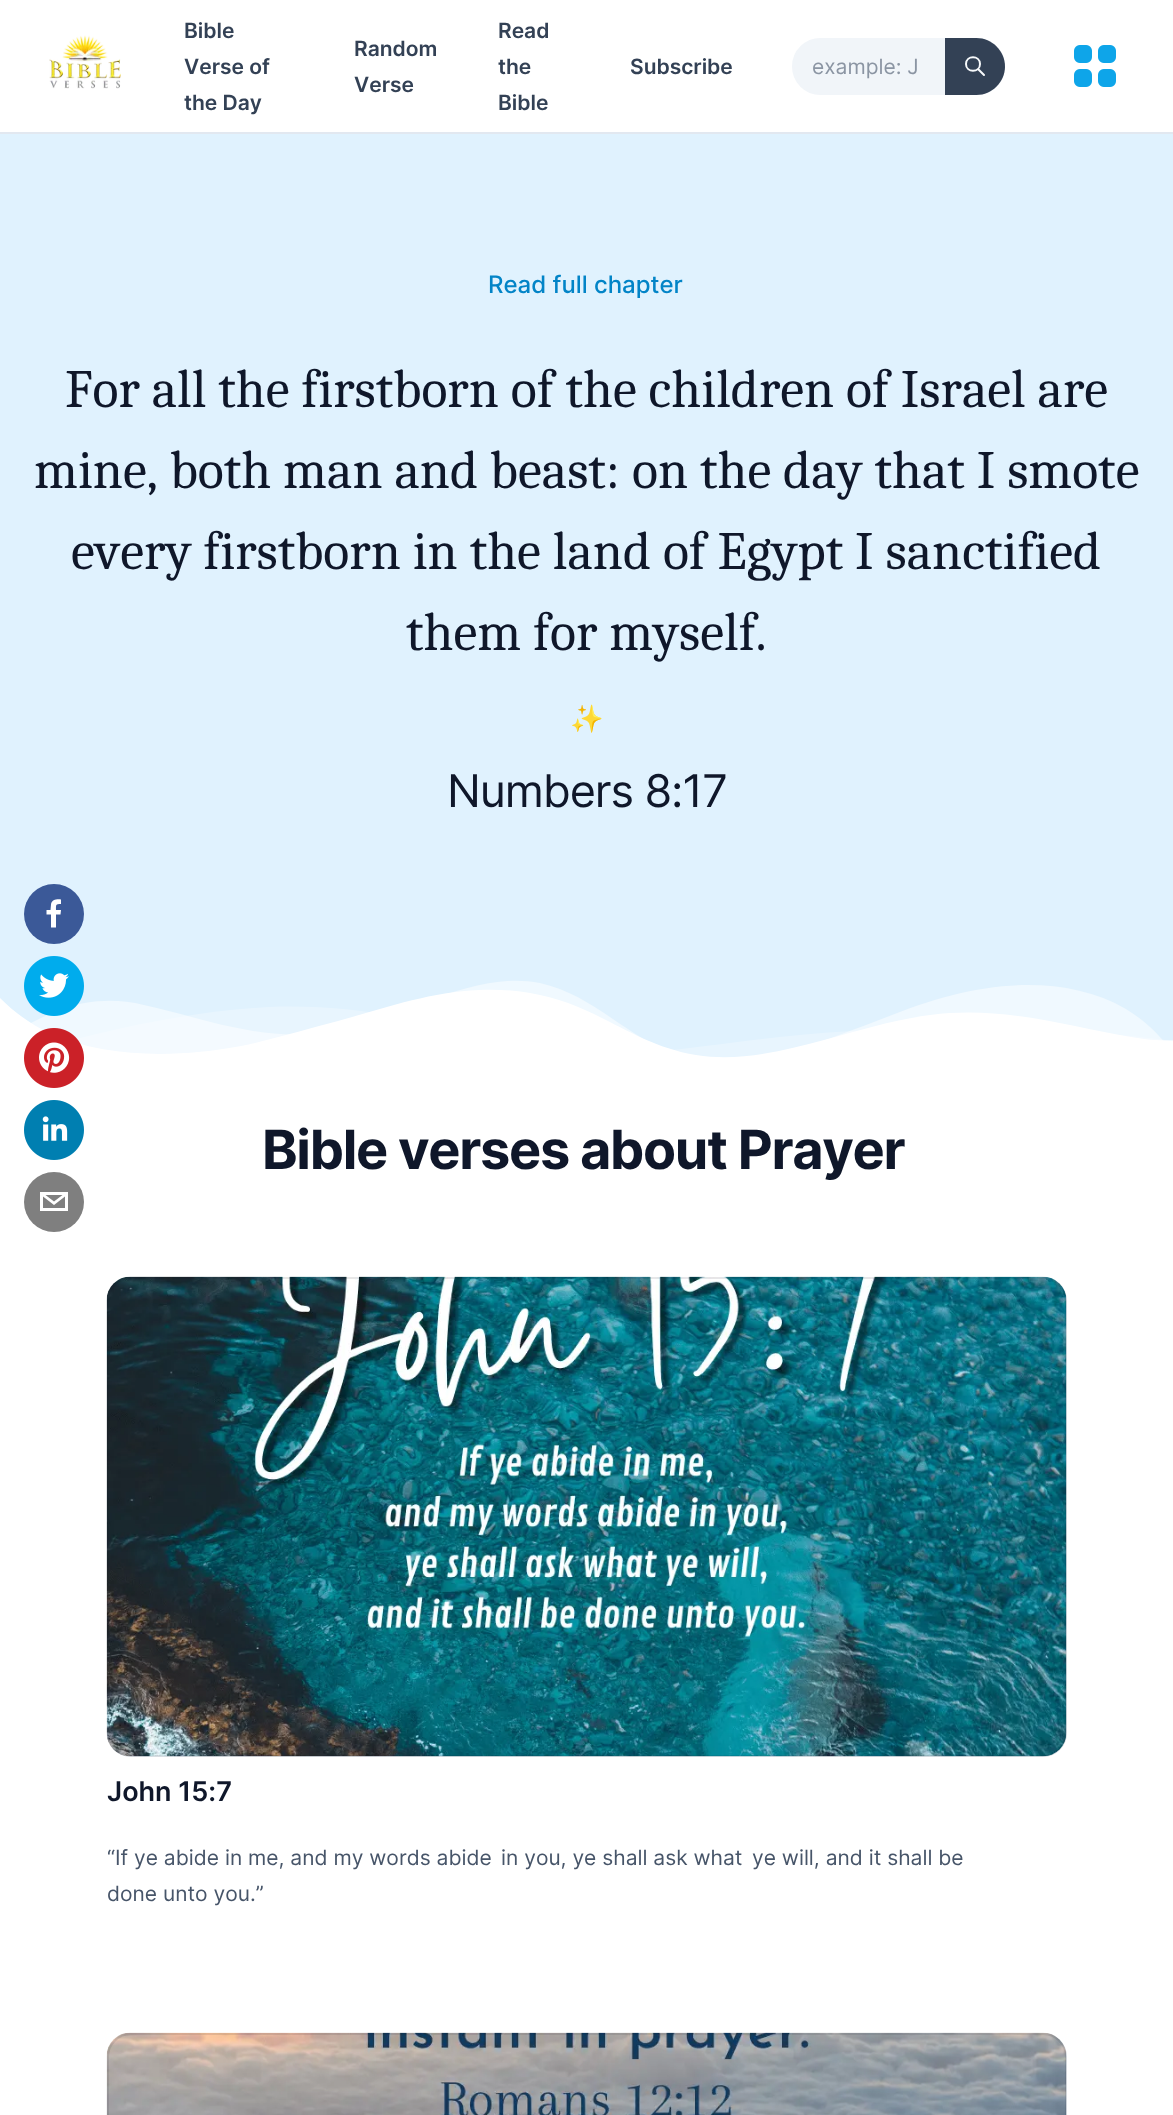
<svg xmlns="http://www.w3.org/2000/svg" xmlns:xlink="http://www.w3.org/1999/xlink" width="1173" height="2115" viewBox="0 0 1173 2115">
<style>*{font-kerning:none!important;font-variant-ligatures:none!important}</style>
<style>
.cls-1{font:600 21px Inter;fill:#334155}
.cls-2{font:21px Inter;fill:#8b95a3}
.cls-3{font:500 24px Inter;fill:#0284c7}
.cls-4{font:54px Caladea;fill:#0f172a}
.cls-5{font:27px Noto Color Emoji;fill:#64748b}
.cls-6{font:45px Inter;letter-spacing:-1.1px;fill:#0f172a}
.cls-7{font:bold 54px Inter;letter-spacing:-1.35px;fill:#0f172a}
.cls-8{font:600 27px Inter;fill:#0f172a}
.cls-9{font:21px Inter;fill:#475569}
</style>
<rect width="100%" height="100%" fill="#ffffff"/>
<rect fill="#e2e8f0" x="0" y="132" width="1173" height="2"/>
<image xlink:href="image0.png" x="49" y="35" width="72" height="54"/>
<rect fill="#f1f5f9" stroke="#f1f5f9" stroke-width="2" x="793" y="39" width="211" height="55" rx="27.5"/>
<path fill="#334155" d="M945 38H976.5C992 38 1005 51 1005 66.5C1005 82 992 95 976.5 95H945Z"/>
<path fill="none" stroke="#f8fafc" stroke-width="2" stroke-linecap="round" stroke-linejoin="round" d="M984 75L978 69M980 64C980 73 966 73 966 64C966 55 980 55 980 64Z"/>
<image xlink:href="image1.png" x="1074" y="45" width="42" height="42"/>
<rect fill="#e0f2fe" x="0" y="134" width="1173" height="924"/>
<circle fill="#3b5998" cx="54" cy="914" r="30"/>
<path fill="#ffffff" d="M56 927.5V914.5H60.5L61 910H56C56 904.5 55.5 904 61 904V899.5C57 899 51.5 899.5 51 904.5L50.5 910H46.5V914.5H51V927.5Z"/>
<path fill="#ffffff" fill-opacity="0.25" d="M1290 1064V1060C1129 1027 953 1019 779 1037C732 1042 688 1049 641 1053C578 1059 520 1046 463 1031C400 1015 338 1004 268 1007C174 1012 82 1036 0 1060V1064Z"/>
<path fill="#ffffff" fill-opacity="0.5" d="M1173 1064V1052C1160 1036 1146 1021 1126 1009C1076 980 1012 980 953 995C923 1002 895 1014 866 1025C826 1039 783 1059 738 1062C702 1064 669 1055 642 1038C610 1019 581 992 540 983C501 975 461 989 424 1002C387 1015 350 1031 310 1034C251 1038 199 1017 144 1005C115 998 87 1000 59 1010C37 1019 12 1031 0 1047V1064Z"/>
<path fill="#ffffff" d="M1131 1037C1072 1027 1014 1009 950 1013C905 1016 865 1029 824 1040C783 1051 739 1062 696 1055C652 1048 619 1025 585 1010C555 996 518 988 479 990C429 992 382 1009 338 1021C306 1029 275 1039 241 1046C177 1058 107 1058 51 1034C30 1024 14 1012 0 998V1064H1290V1002C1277 1016 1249 1026 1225 1033C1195 1041 1164 1043 1131 1037Z"/>
<image xlink:href="image2.png" x="24" y="956" width="60" height="60"/>
<image xlink:href="image3.png" x="24" y="1028" width="60" height="60"/>
<image xlink:href="image4.png" x="24" y="1100" width="60" height="60"/>
<circle fill="#7f7f7f" cx="54" cy="1202" r="30"/>
<path fill="#ffffff" d="M40 1192V1211H68V1192ZM62.5 1195L54 1201.5L45.5 1195ZM43 1208V1196.5L54 1205L65 1196.5V1208Z"/>
<rect fill="#f1f5f9" x="107" y="1277" width="960" height="480" rx="24"/>
<image xlink:href="image5.png" x="106" y="1276" width="961" height="481"/>
<rect fill="none" stroke="#0f172a" stroke-opacity="0.1" stroke-width="2" x="108" y="1278" width="958" height="478" rx="23"/>
<rect fill="#f1f5f9" x="107" y="2033" width="960" height="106" rx="24"/>
<image xlink:href="image6.png" x="106" y="2032" width="961" height="83"/>
<rect fill="none" stroke="#0f172a" stroke-opacity="0.1" stroke-width="2" x="108" y="2034" width="958" height="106" rx="23"/>
<text class="cls-1"><tspan x="184" y="38">Bible</tspan><tspan x="184" y="74">Verse of</tspan><tspan x="184" y="110">the Day</tspan></text>
<text class="cls-1"><tspan x="354" y="56">Random</tspan><tspan x="354" y="92">Verse</tspan></text>
<text class="cls-1"><tspan x="498" y="38">Read</tspan><tspan x="498" y="74">the</tspan><tspan x="498" y="110">Bible</tspan></text>
<text class="cls-1" x="630" y="74">Subscribe</text>
<text class="cls-2" x="812" y="74">example: J</text>
<text class="cls-3" x="488" y="293">Read full chapter</text>
<text class="cls-4" x="65" y="407">For all the firstborn of the children of Israel are</text>
<text class="cls-4" x="34" y="488">mine, both man and beast: on the day that I smote</text>
<text class="cls-4" x="71" y="569">every firstborn in the land of Egypt I sanctified</text>
<text class="cls-4" x="406" y="650">them for myself.</text>
<text class="cls-5" x="570" y="728">✨</text>
<text class="cls-6" x="447" y="807">Numbers 8:17</text>
<text class="cls-7" x="262" y="1169">Bible verses about Prayer</text>
<text class="cls-8" x="107" y="1801">John 15:7</text>
<text class="cls-9" x="107" y="1865">“If ye abide in me, and my words abide</text>
<text class="cls-9" x="501" y="1865">in you, ye shall ask what</text>
<text class="cls-9" x="752" y="1865">ye will, and it shall be</text>
<text class="cls-9" x="107" y="1901">done unto you.”</text>
</svg>
